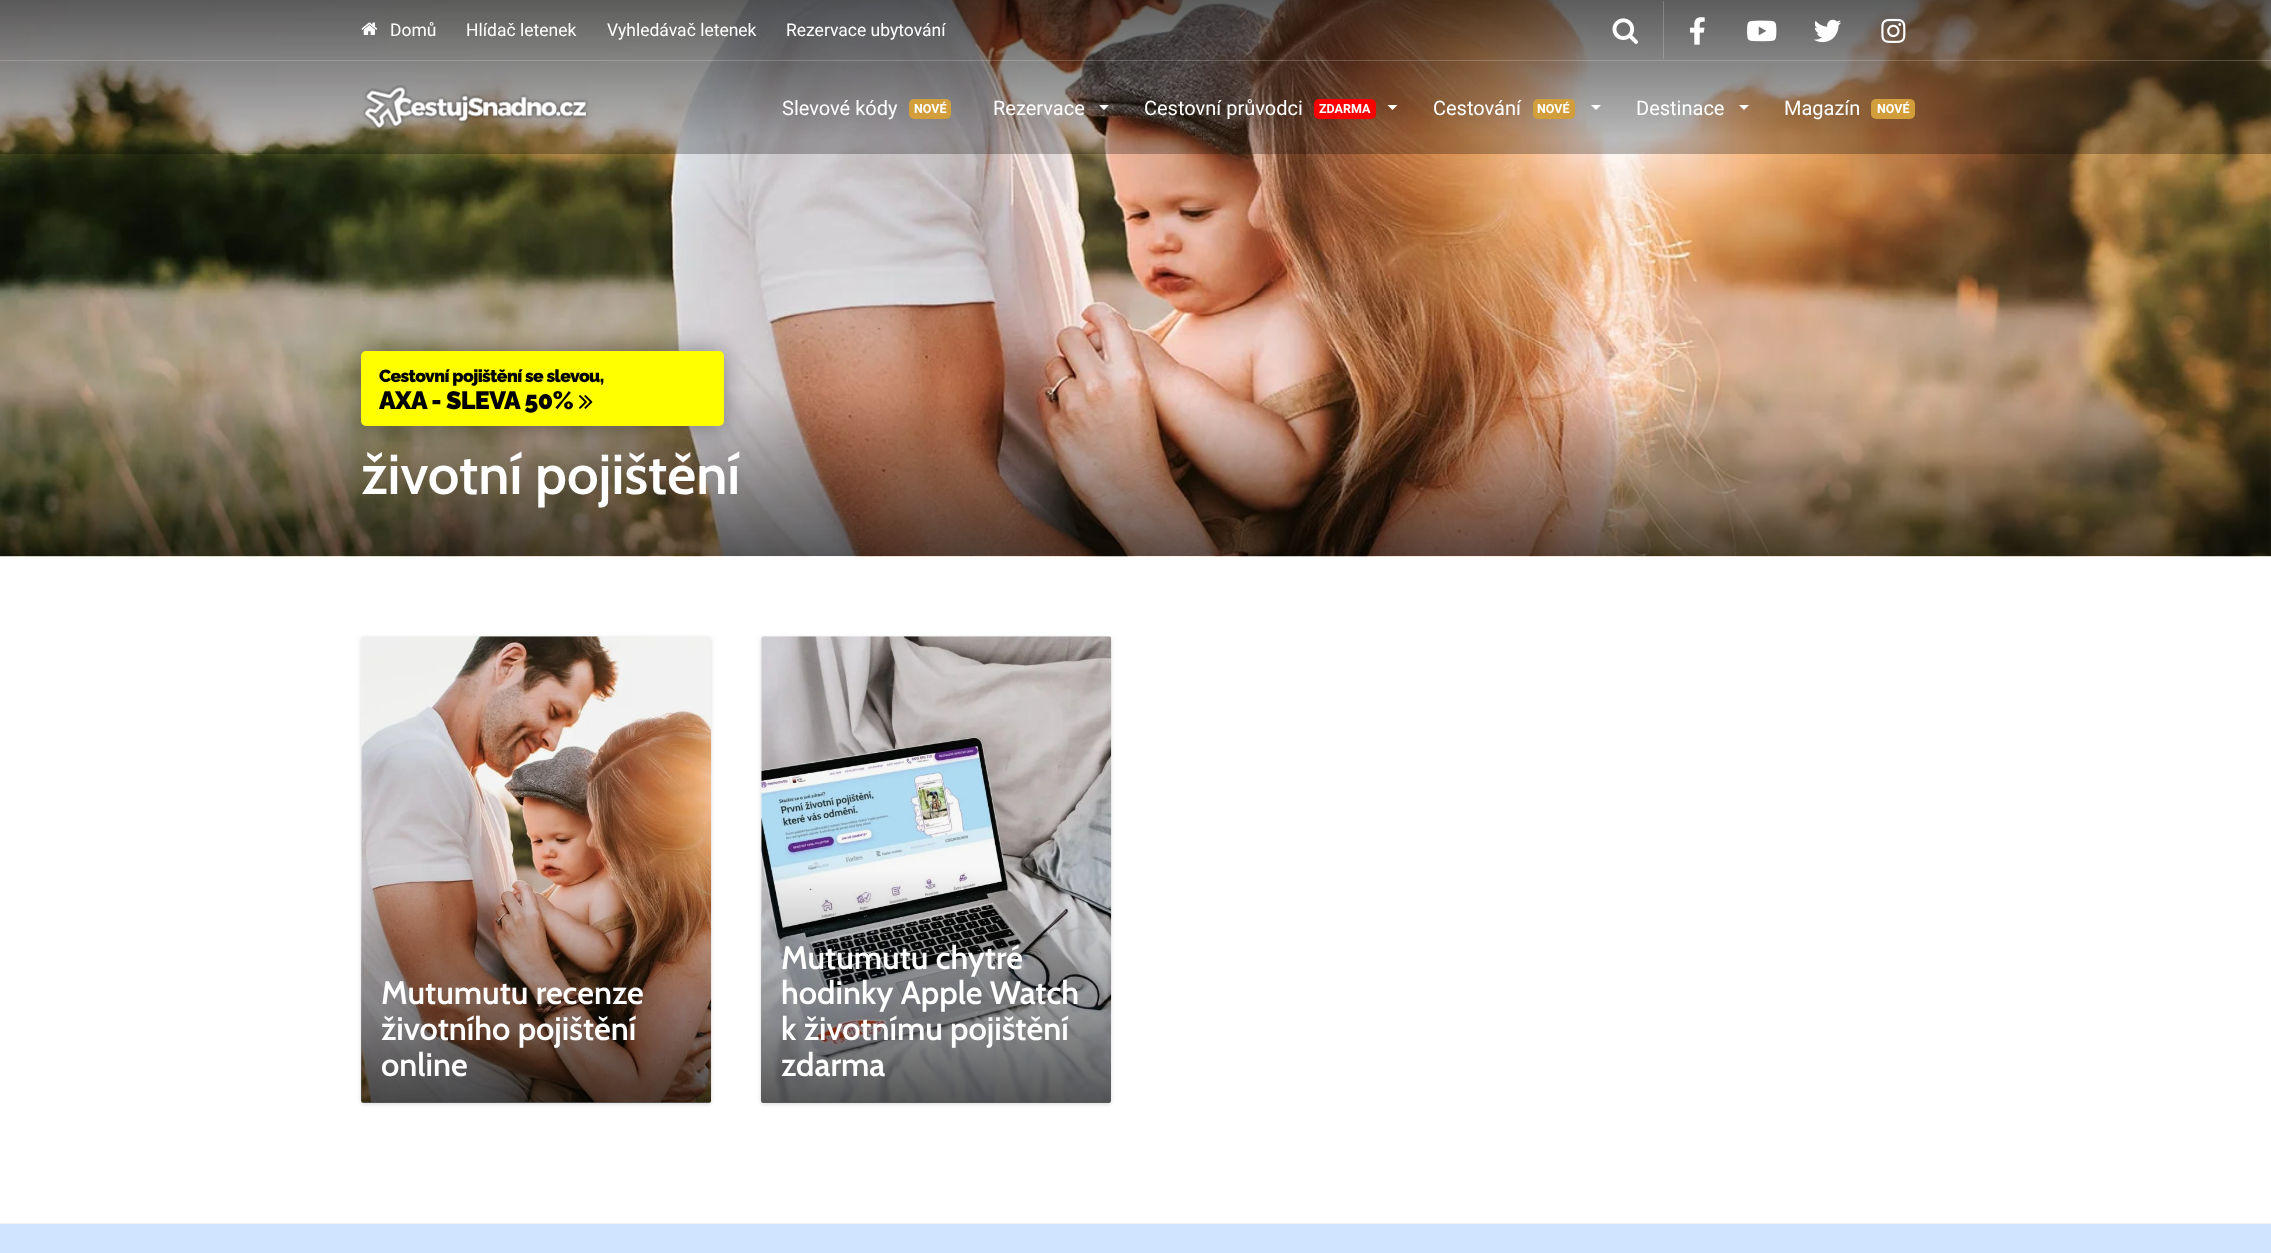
<svg xmlns="http://www.w3.org/2000/svg" xmlns:xlink="http://www.w3.org/1999/xlink" width="2271" height="1253" viewBox="0 0 2271 1253">
<style>
.cls-1{font:17.5px Roboto;fill:#ffffff}
.cls-2{font:20px Roboto;fill:#ffffff}
.cls-3{font:bold 12.5px Roboto;fill:#ffffff}
.cls-4{font:100 17.5px Raleway;letter-spacing:-0.6px;fill:#000000}
.cls-5{font:100 25px Raleway;letter-spacing:-0.6px;fill:#000000}
.cls-6{font:600 56.25px Cabin;fill:#ffffff}
.cls-7{font:600 32.5px Cabin;fill:#ffffff}
</style>
<defs>
<linearGradient id="g1" gradientUnits="userSpaceOnUse" x1="536" y1="636" x2="536" y2="1103"><stop offset="0.5" stop-color="#000000" stop-opacity="0.03"/><stop offset="1" stop-color="#000000" stop-opacity="0.66"/></linearGradient>
<linearGradient id="g2" gradientUnits="userSpaceOnUse" x1="936" y1="636" x2="936" y2="1103"><stop offset="0.5" stop-color="#000000" stop-opacity="0.03"/><stop offset="1" stop-color="#000000" stop-opacity="0.66"/></linearGradient>
</defs>
<rect width="100%" height="100%" fill="#ffffff"/>
<image xlink:href="image7.png" x="0" y="0" width="2271" height="557"/>
<rect fill="#000000" fill-opacity="0.26" x="0" y="0" width="2271" height="154"/>
<rect fill="#ffffff" fill-opacity="0.2" x="0" y="60" width="2271" height="1"/>
<image xlink:href="image0.png" x="361" y="22" width="17" height="13"/>
<rect fill="#ffffff" fill-opacity="0.2" x="1663" y="1" width="1" height="58"/>
<image xlink:href="image1.png" x="1612" y="18" width="26" height="26"/>
<image xlink:href="image2.png" x="1690" y="17" width="15" height="28"/>
<image xlink:href="image3.png" x="1747" y="20" width="30" height="22"/>
<image xlink:href="image4.png" x="1814" y="19" width="28" height="24"/>
<image xlink:href="image5.png" x="1881" y="18" width="25" height="25"/>
<image xlink:href="image6.png" x="362" y="85" width="227" height="45"/>
<rect fill="#d19e3b" x="909" y="99" width="42" height="20" rx="5"/>
<path fill="#ffffff" d="M1099 105H1109L1104 110Z"/>
<rect fill="#fc0000" x="1314" y="99" width="62" height="20" rx="5"/>
<path fill="#ffffff" d="M1387.5 105H1397.5L1392.5 110Z"/>
<rect fill="#d19e3b" x="1533" y="99" width="42" height="20" rx="5"/>
<path fill="#ffffff" d="M1591 105H1601L1596 110Z"/>
<path fill="#ffffff" d="M1739 105H1749L1744 110Z"/>
<rect fill="#d19e3b" x="1871" y="99" width="44" height="20" rx="5"/>
<rect fill="#000000" fill-opacity="0.4" filter="blur(12.5px)" x="361" y="351" width="363" height="75" rx="5"/>
<rect fill="#ffff00" x="361" y="351" width="363" height="75" rx="5"/>
<image xlink:href="image8.png" x="579" y="395" width="14" height="14"/>
<rect fill="#000000" fill-opacity="0.15" filter="blur(2px)" x="361" y="638" width="350" height="466" rx="2.5"/>
<rect fill="#ffffff" x="361" y="636" width="350" height="467" rx="2.5"/>
<image xlink:href="image9.png" x="361" y="636" width="351" height="467"/>
<rect fill="url(#g1)" x="361" y="636" width="350" height="467" rx="2.5"/>
<rect fill="#000000" fill-opacity="0.15" filter="blur(2px)" x="761" y="638" width="350" height="466" rx="2.5"/>
<rect fill="#ffffff" x="761" y="636" width="350" height="467" rx="2.5"/>
<image xlink:href="image10.png" x="761" y="636" width="351" height="467"/>
<rect fill="url(#g2)" x="761" y="636" width="350" height="467" rx="2.5"/>
<rect fill="#f1f1f1" x="0" y="1223" width="2271" height="1"/>
<rect fill="#d0e3ff" x="0" y="1224" width="2271" height="29"/>
<text class="cls-1" x="390" y="36">Domů</text>
<text class="cls-1" x="466" y="36">Hlídač letenek</text>
<text class="cls-1" x="607" y="36">Vyhledávač letenek</text>
<text class="cls-1" x="786" y="36">Rezervace ubytování</text>
<text class="cls-2" x="782" y="115">Slevové kódy</text>
<text class="cls-3" x="914" y="113">NOVÉ</text>
<text class="cls-2" x="993" y="115">Rezervace</text>
<text class="cls-2" x="1144" y="115">Cestovní průvodci</text>
<text class="cls-3" x="1319" y="113">ZDARMA</text>
<text class="cls-2" x="1433" y="115">Cestování</text>
<text class="cls-3" x="1537" y="113">NOVÉ</text>
<text class="cls-2" x="1636" y="115">Destinace</text>
<text class="cls-2" x="1784" y="115">Magazín</text>
<text class="cls-3" x="1877" y="113">NOVÉ</text>
<text class="cls-4" x="379" y="382">Cestovní pojištění se slevou,</text>
<text class="cls-5" x="379" y="409">AXA - SLEVA 50%</text>
<text class="cls-6" x="361" y="494">životní pojištění</text>
<text class="cls-7"><tspan x="381" y="1004">Mutumutu recenze</tspan><tspan x="381" y="1040">životního pojištění</tspan><tspan x="381" y="1076">online</tspan></text>
<text class="cls-7"><tspan x="781" y="969">Mutumutu chytré</tspan><tspan x="781" y="1004">hodinky Apple Watch</tspan><tspan x="781" y="1040">k životnímu pojištění</tspan><tspan x="781" y="1076">zdarma</tspan></text>
</svg>
